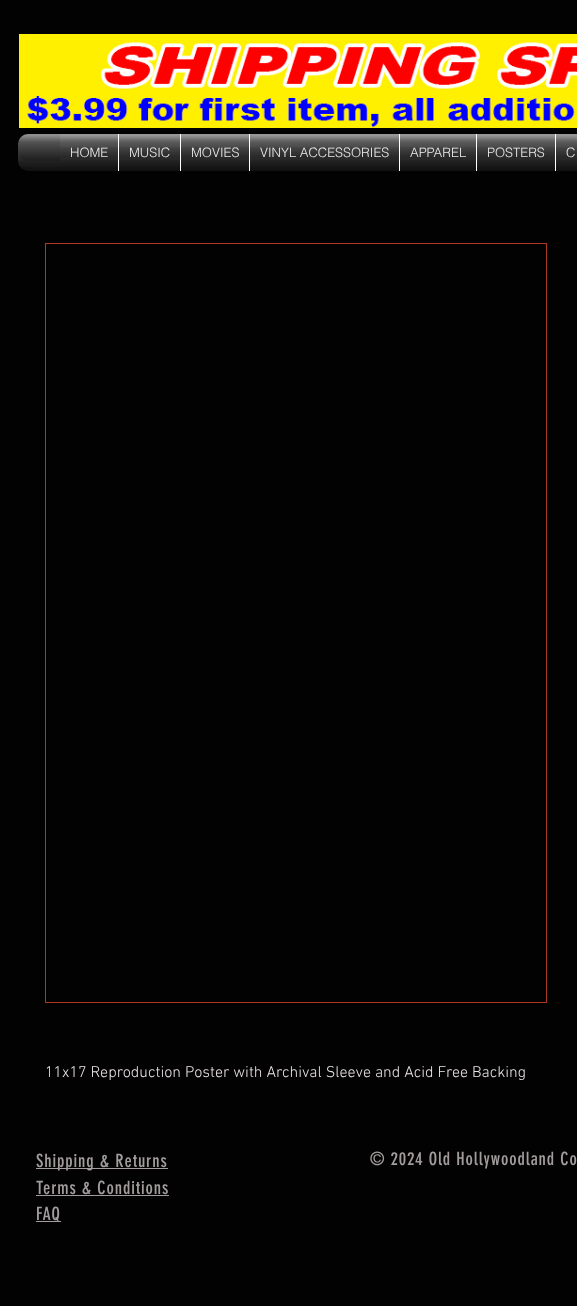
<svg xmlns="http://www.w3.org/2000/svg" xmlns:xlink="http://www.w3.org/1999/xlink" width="577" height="1306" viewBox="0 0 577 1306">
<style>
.cls-1{font:300 13px helvetica;fill:#ffffff}
.cls-2{font:300 16px 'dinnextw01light';fill:#eee6e6}
.cls-3{font:18px 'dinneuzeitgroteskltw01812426';letter-spacing:0.9px;fill:#a29c9c}
</style>
<rect width="100%" height="100%" fill="#020202"/>
<image xlink:href="image0.png" x="19" y="34" width="558" height="94"/>
<image xlink:href="image1.png" x="18" y="134" width="42" height="37"/>
<image xlink:href="image2.png" x="18" y="134" width="42" height="27"/>
<rect fill="#ffffff" x="118" y="134" width="1" height="37"/>
<rect fill="#ffffff" x="180" y="134" width="1" height="37"/>
<rect fill="#ffffff" x="249" y="134" width="1" height="37"/>
<rect fill="#ffffff" x="399" y="134" width="1" height="37"/>
<rect fill="#ffffff" x="476" y="134" width="1" height="37"/>
<rect fill="#ffffff" x="555" y="134" width="1" height="37"/>
<rect fill="none" stroke="#b03820" x="45.5" y="243.5" width="501" height="759"/>
<rect fill="#a29c9c" x="36" y="1168" width="132" height="1"/>
<rect fill="#a29c9c" x="36" y="1195" width="133" height="1"/>
<rect fill="#a29c9c" x="36" y="1221" width="25" height="1"/>
<text class="cls-1" x="70" y="157">HOME</text>
<image xlink:href="image3.png" x="60" y="134" width="58" height="37"/>
<image xlink:href="image4.png" x="60" y="147" width="58" height="11"/>
<text class="cls-1" x="129" y="157">MUSIC</text>
<image xlink:href="image5.png" x="119" y="134" width="61" height="37"/>
<image xlink:href="image6.png" x="119" y="147" width="61" height="11"/>
<text class="cls-1" x="191" y="157">MOVIES</text>
<image xlink:href="image7.png" x="181" y="134" width="68" height="37"/>
<image xlink:href="image8.png" x="181" y="147" width="68" height="11"/>
<text class="cls-1" x="260" y="157">VINYL ACCESSORIES</text>
<image xlink:href="image9.png" x="250" y="134" width="149" height="37"/>
<image xlink:href="image10.png" x="250" y="147" width="149" height="11"/>
<text class="cls-1" x="410" y="157">APPAREL</text>
<image xlink:href="image11.png" x="400" y="134" width="76" height="37"/>
<image xlink:href="image12.png" x="400" y="147" width="76" height="11"/>
<text class="cls-1" x="487" y="157">POSTERS</text>
<image xlink:href="image13.png" x="477" y="134" width="78" height="37"/>
<image xlink:href="image14.png" x="477" y="147" width="78" height="11"/>
<text class="cls-1" x="566" y="157">C</text>
<image xlink:href="image15.png" x="556" y="134" width="21" height="37"/>
<image xlink:href="image16.png" x="556" y="147" width="21" height="11"/>
<text class="cls-2" x="45" y="1077">11x17 Reproduction Poster with Archival Sleeve and Acid Free Backing</text>
<text class="cls-3" x="36" y="1167">Shipping &amp; Returns</text>
<text class="cls-3" x="370" y="1165">© 2024 Old Hollywoodland Co</text>
<text class="cls-3"><tspan x="36" y="1194">Terms &amp; Conditions</tspan><tspan x="36" y="1220">FAQ</tspan></text>
</svg>
